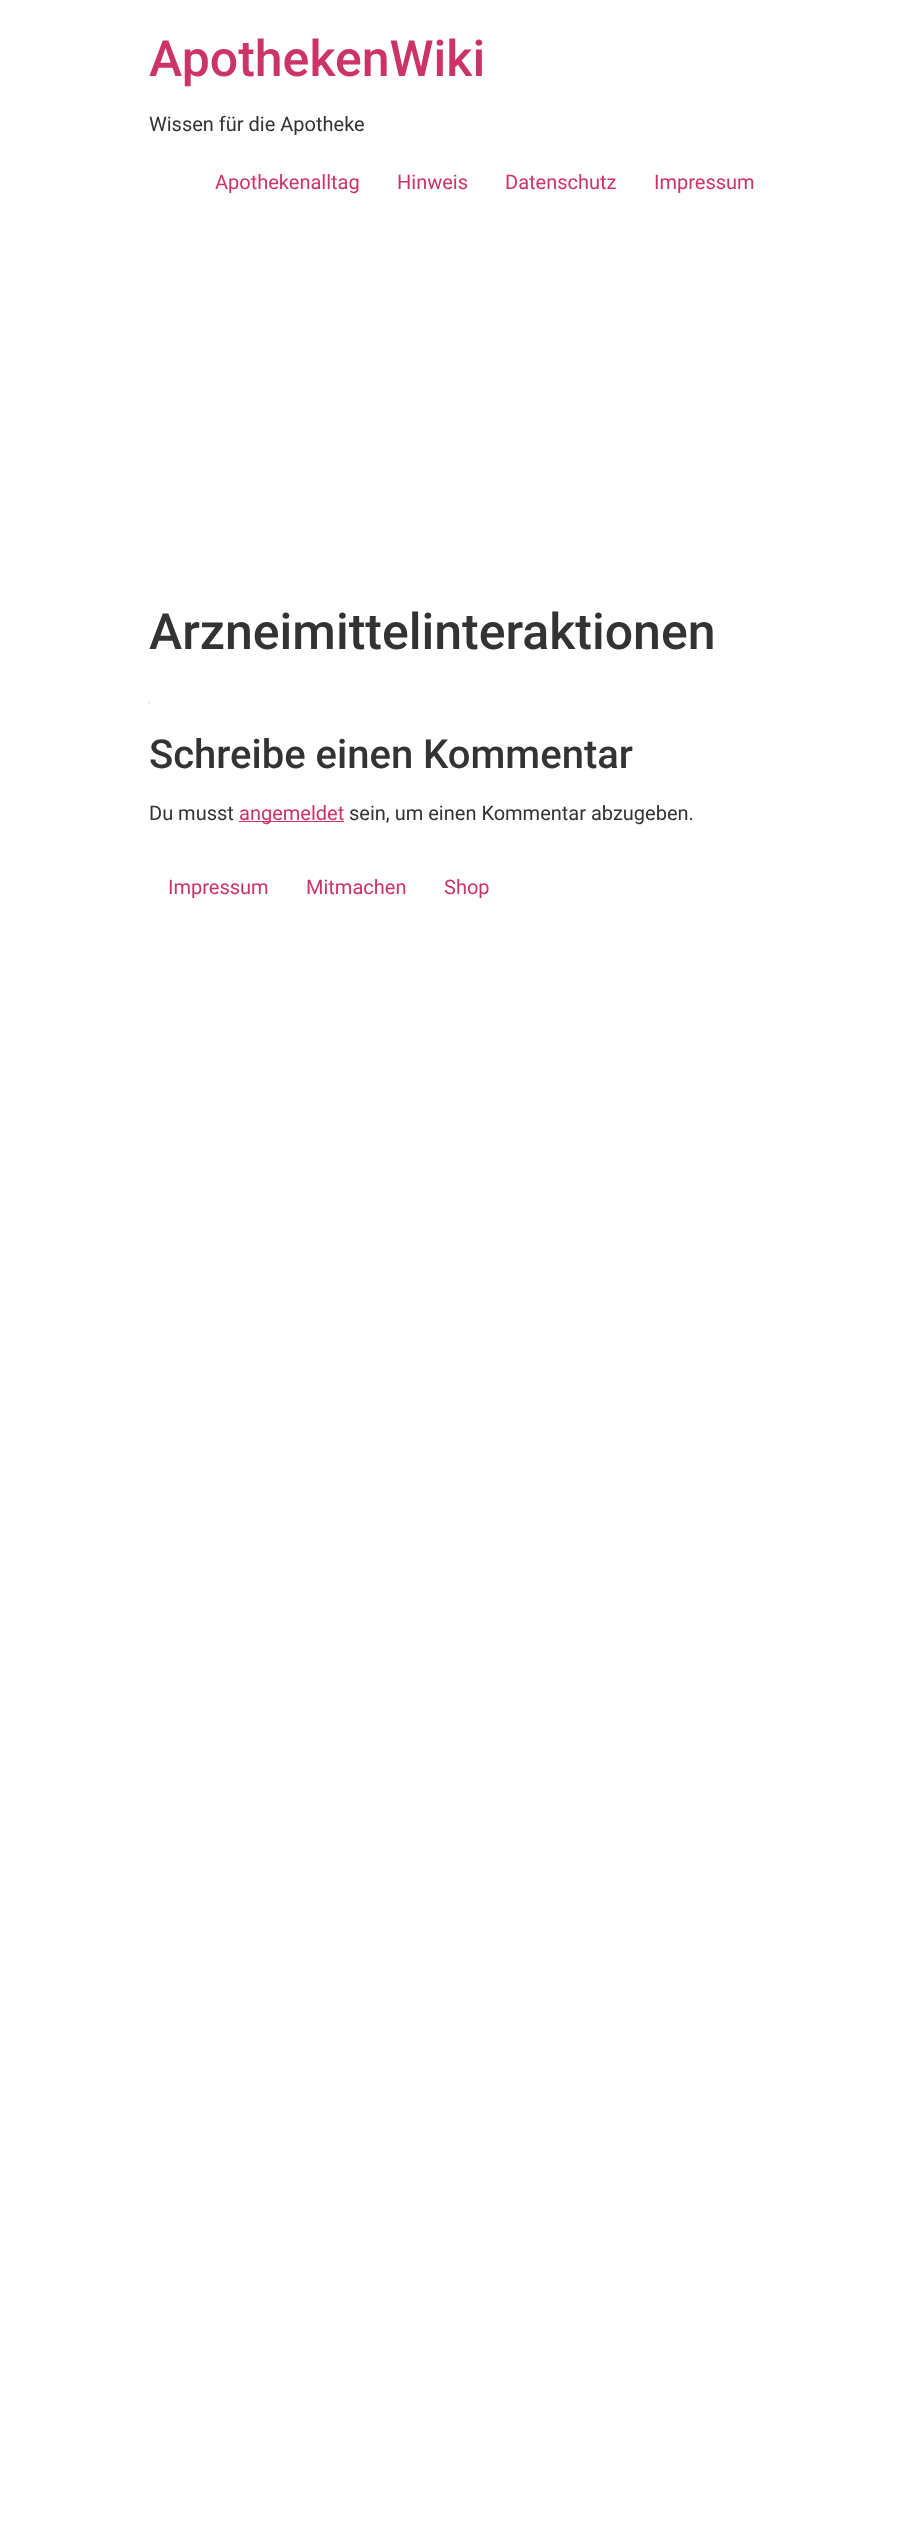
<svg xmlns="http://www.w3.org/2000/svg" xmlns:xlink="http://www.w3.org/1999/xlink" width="922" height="2528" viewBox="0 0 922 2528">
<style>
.cls-1{font:500 50px Roboto;fill:#cc3366}
.cls-2{font:20px Roboto;fill:#333333}
.cls-3{font:20px Roboto;fill:#cc3366}
.cls-4{font:500 50px Roboto;fill:#333333}
.cls-5{font:500 40px Roboto;fill:#333333}
</style>
<rect width="100%" height="100%" fill="#ffffff"/>
<image xlink:href="image0.png" x="148" y="702" width="2" height="2"/>
<rect fill="#cc3366" x="239" y="821" width="105" height="1"/>
<text class="cls-1" x="149" y="76">ApothekenWiki</text>
<text class="cls-2" x="149" y="131">Wissen für die Apotheke</text>
<text class="cls-3" x="215" y="189">Apothekenalltag</text>
<text class="cls-3" x="397" y="189">Hinweis</text>
<text class="cls-3" x="505" y="189">Datenschutz</text>
<text class="cls-3" x="654" y="189">Impressum</text>
<text class="cls-4" x="149" y="649">Arzneimittelinteraktionen</text>
<text class="cls-5" x="149" y="768">Schreibe einen Kommentar</text>
<text class="cls-2" x="149" y="820">Du musst</text>
<text class="cls-3" x="239" y="820">angemeldet</text>
<text class="cls-2" x="349" y="820">sein, um einen Kommentar abzugeben.</text>
<text class="cls-3" x="168" y="894">Impressum</text>
<text class="cls-3" x="306" y="894">Mitmachen</text>
<text class="cls-3" x="444" y="894">Shop</text>
</svg>
